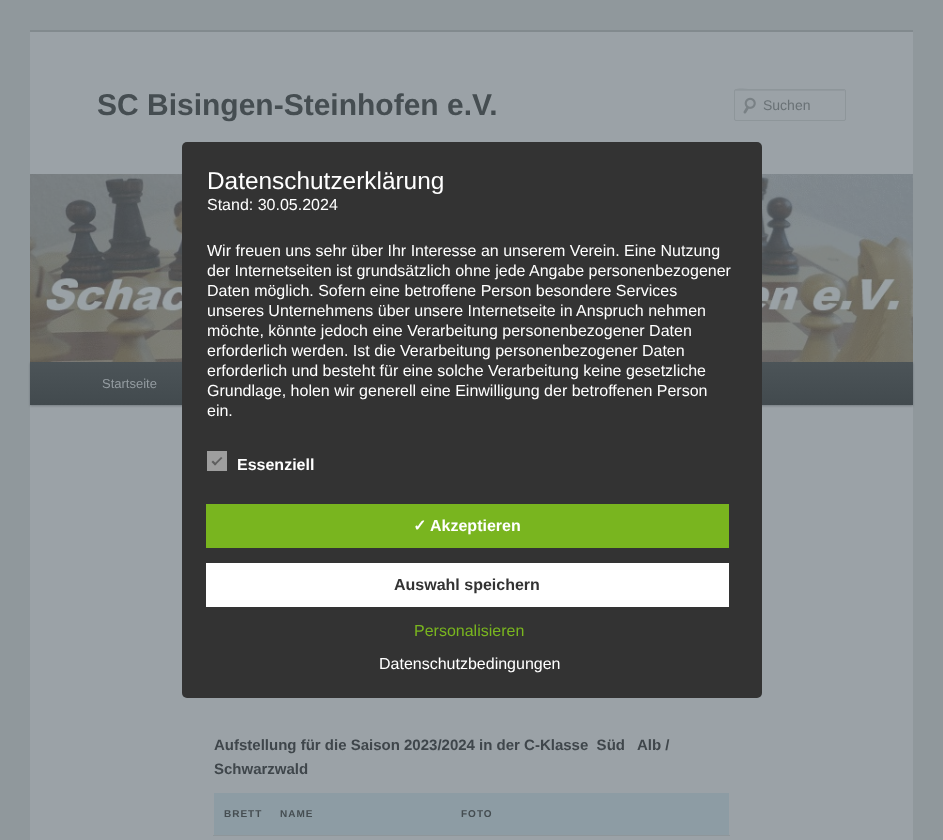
<svg xmlns="http://www.w3.org/2000/svg" xmlns:xlink="http://www.w3.org/1999/xlink" width="943" height="840" viewBox="0 0 943 840">
<style>
.cls-1{font:bold 30px Liberation Sans;fill:#454d51}
.cls-2{font:14px Liberation Sans;fill:#697175}
.cls-3{font:13px Liberation Sans;fill:#949ca1}
.cls-4{font:bold 15px Liberation Sans;fill:#3f464b}
.cls-5{font:bold 10px Liberation Sans;letter-spacing:1px;fill:#454d51}
.cls-6{font:24.4px Liberation Sans;fill:#ffffff}
.cls-7{font:16px Liberation Sans;fill:#ffffff}
.cls-8{font:bold 16px Liberation Sans;fill:#ffffff}
.cls-9{font:bold 16px DejaVu Sans;fill:#ffffff}
.cls-10{font:bold 16px Liberation Sans;fill:#333333}
.cls-11{font:16px Liberation Sans;fill:#79b51f}
</style>
<defs>
<linearGradient id="g1" gradientUnits="userSpaceOnUse" x1="472" y1="362" x2="472" y2="405"><stop offset="0" stop-color="#4c5458"/><stop offset="1" stop-color="#424a4e"/></linearGradient>
</defs>
<rect width="100%" height="100%" fill="#90989c"/>
<rect fill="#9ba2a7" x="30" y="32" width="883" height="808"/>
<rect fill="#828a8e" x="30" y="30" width="883" height="2"/>
<image xlink:href="image0.png" x="743" y="97" width="13" height="17"/>
<path fill="#92999e" d="M736 91H845V92L844 90H754C750 90 735 85 735 92C735 91 735 91 736 91Z"/>
<rect fill="none" stroke="#8e969a" x="734.5" y="89.5" width="111" height="31" rx="1.5"/>
<rect fill="#3f464b" fill-opacity="0.4" filter="blur(1px)" x="30" y="363" width="883" height="43"/>
<image xlink:href="image1.png" x="30" y="174" width="883" height="188"/>
<rect fill="url(#g1)" x="30" y="362" width="883" height="43"/>
<rect fill="#8d9ca4" x="214" y="793" width="515" height="42"/>
<rect fill="#8e969a" x="213" y="835" width="517" height="1"/>
<rect fill="#333333" x="182" y="142" width="580" height="556" rx="5"/>
<rect fill="#9e9e9e" x="207" y="451" width="20" height="20"/>
<path fill="#5e5e5e" d="M221 457L222.5 458L215 465.5L214 464Z"/>
<path fill="#5e5e5e" d="M213 460.5L216.5 464L215 465.5L211.5 462Z"/>
<rect fill="#79b51f" x="206" y="504" width="523" height="44"/>
<rect fill="#ffffff" x="206" y="563" width="523" height="44"/>
<text class="cls-1" x="97" y="115">SC Bisingen-Steinhofen e.V.</text>
<text class="cls-2" x="763" y="110">Suchen</text>
<text class="cls-3" x="102" y="388">Startseite</text>
<text class="cls-4" xml:space="preserve"><tspan x="214" y="750">Aufstellung für die Saison 2023/2024 in der C-Klasse  Süd   Alb /</tspan><tspan x="214" y="774">Schwarzwald</tspan></text>
<text class="cls-5" x="224" y="817">BRETT</text>
<text class="cls-5" x="280" y="817">NAME</text>
<text class="cls-5" x="461" y="817">FOTO</text>
<text class="cls-6" x="207" y="189">Datenschutzerklärung</text>
<text class="cls-7" x="207" y="210">Stand: 30.05.2024</text>
<text class="cls-7"><tspan x="207" y="256">Wir freuen uns sehr über Ihr Interesse an unserem Verein. Eine Nutzung</tspan><tspan x="207" y="276">der Internetseiten ist grundsätzlich ohne jede Angabe personenbezogener</tspan><tspan x="207" y="296">Daten möglich. Sofern eine betroffene Person besondere Services</tspan><tspan x="207" y="316">unseres Unternehmens über unsere Internetseite in Anspruch nehmen</tspan><tspan x="207" y="336">möchte, könnte jedoch eine Verarbeitung personenbezogener Daten</tspan><tspan x="207" y="356">erforderlich werden. Ist die Verarbeitung personenbezogener Daten</tspan><tspan x="207" y="376">erforderlich und besteht für eine solche Verarbeitung keine gesetzliche</tspan><tspan x="207" y="396">Grundlage, holen wir generell eine Einwilligung der betroffenen Person</tspan><tspan x="207" y="416">ein.</tspan></text>
<text class="cls-8" x="237" y="470">Essenziell</text>
<text class="cls-9" x="413" y="531">✓</text>
<text class="cls-8" x="430" y="531">Akzeptieren</text>
<text class="cls-10" x="394" y="590">Auswahl speichern</text>
<text class="cls-11" x="414" y="636">Personalisieren</text>
<text class="cls-7" x="379" y="669">Datenschutzbedingungen</text>
</svg>
